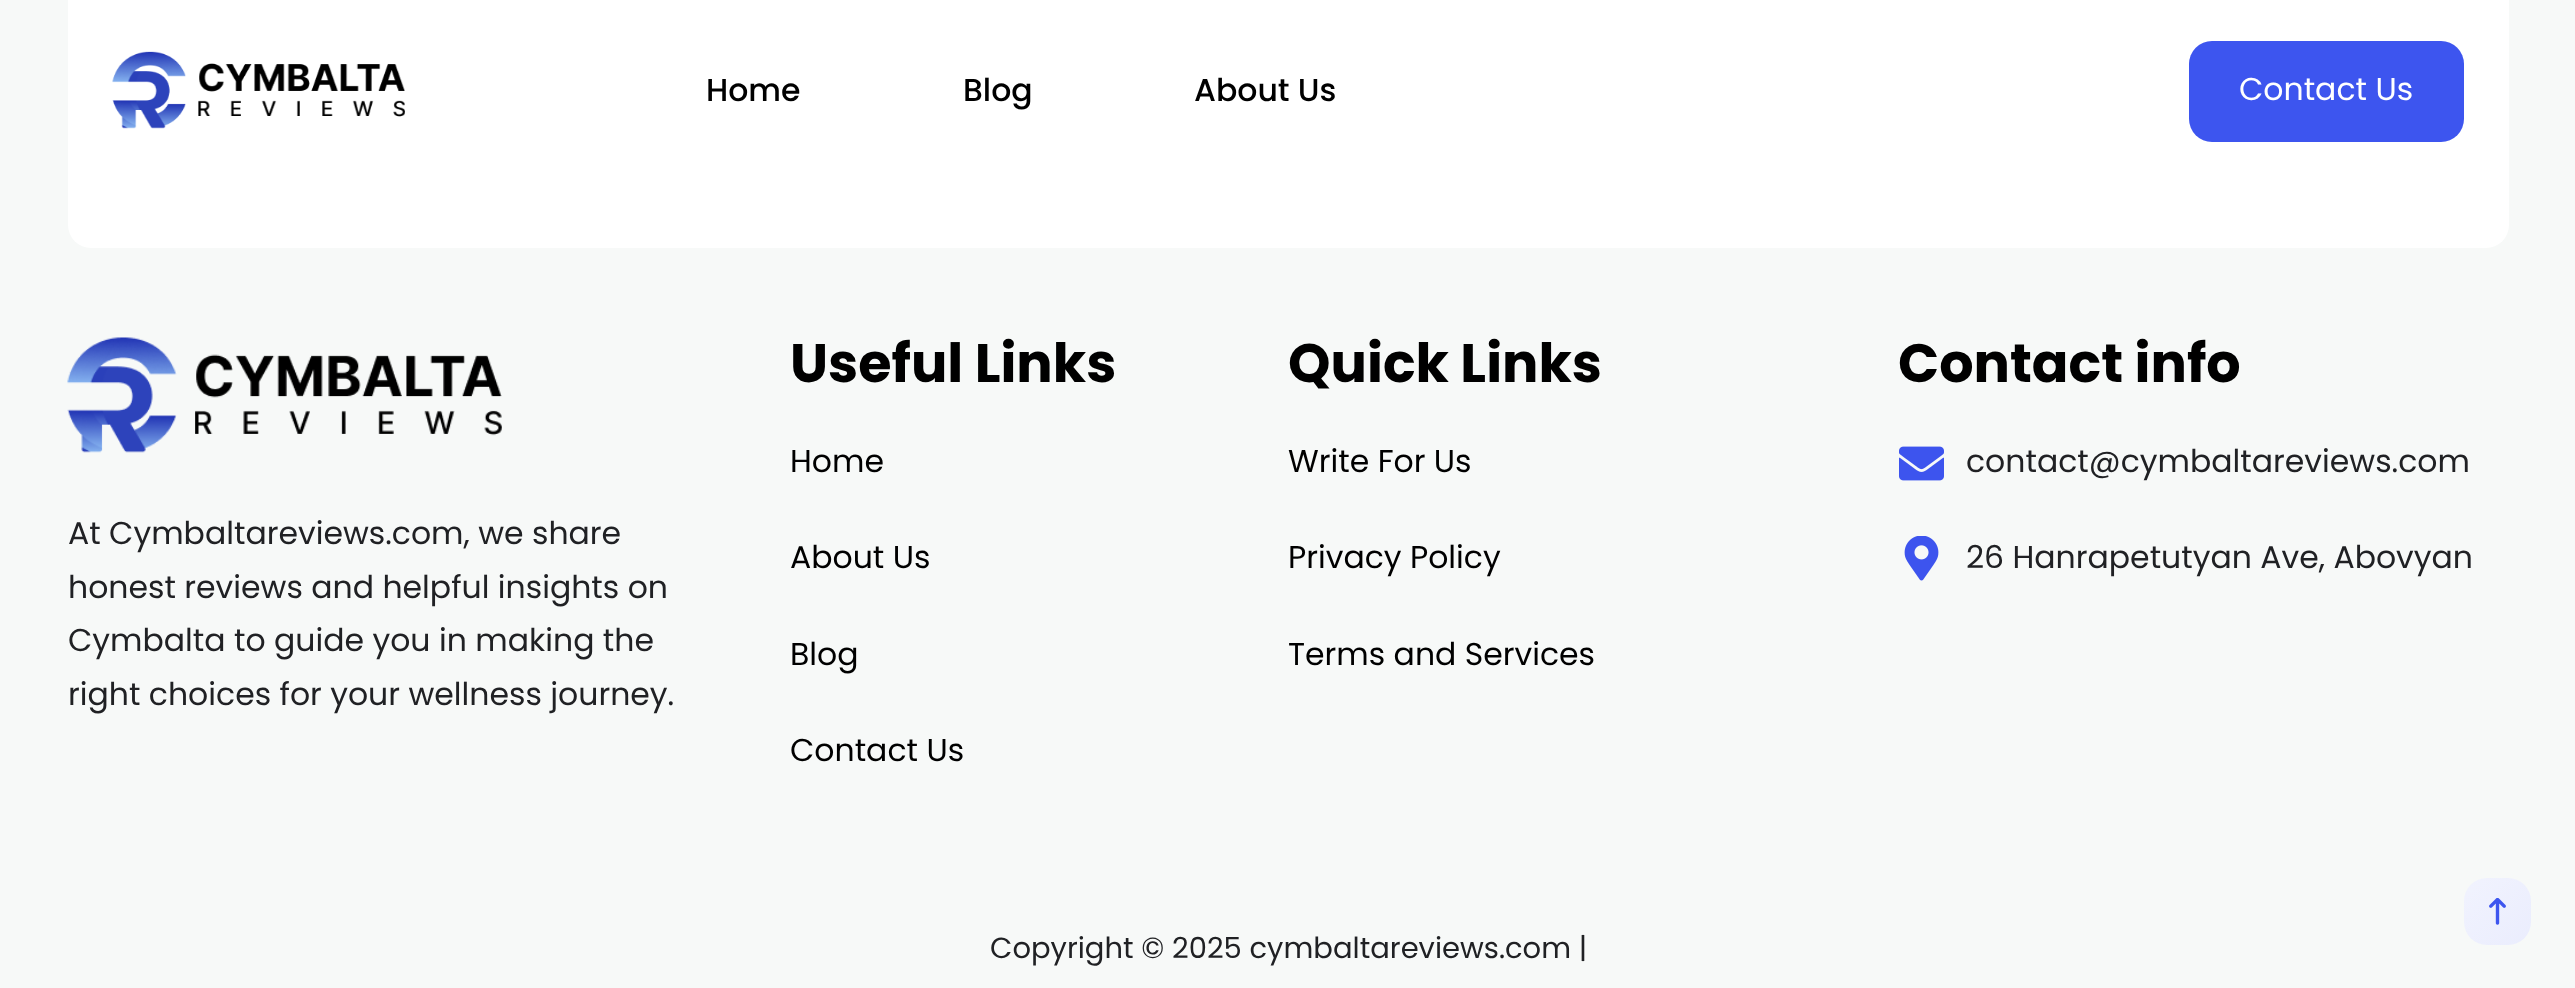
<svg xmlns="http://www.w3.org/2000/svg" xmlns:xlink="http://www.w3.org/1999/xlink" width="2575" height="988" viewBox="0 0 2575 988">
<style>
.cls-1{font:500 31.5px Poppins;fill:#000000}
.cls-2{font:31.5px Poppins;fill:#ffffff}
.cls-3{font:bold 54px Poppins;fill:#000000}
.cls-4{font:31.5px Poppins;fill:#000000}
.cls-5{font:31.5px Poppins;fill:#202124}
.cls-6{font:29px Poppins;fill:#202124}
</style>
<defs>
<linearGradient id="g1" gradientUnits="userSpaceOnUse" x1="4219" y1="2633" x2="2329" y2="743"><stop offset="0" stop-color="#3d55ef"/><stop offset="1" stop-color="#3d55ef" stop-opacity="0"/></linearGradient>
</defs>
<rect width="100%" height="100%" fill="#f7f9f8"/>
<rect fill="#ffffff" x="68" y="-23" width="2441" height="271" rx="23"/>
<image xlink:href="image0.png" x="112" y="51" width="293" height="78"/>
<rect fill="#3d55ef" x="2189" y="41" width="275" height="101" rx="23"/>
<image xlink:href="image1.png" x="1899" y="446" width="45" height="35"/>
<image xlink:href="image2.png" x="1904" y="536" width="35" height="45"/>
<image xlink:href="image3.png" x="67" y="337" width="435" height="116"/>
<rect fill="#ffffff" x="2464" y="878" width="67" height="67" rx="23"/>
<rect fill="url(#g1)" x="2464" y="878" width="67" height="67" rx="23"/>
<image xlink:href="image4.png" x="2489" y="898" width="17" height="27"/>
<text class="cls-1" x="706" y="101">Home</text>
<text class="cls-1" x="963" y="101">Blog</text>
<text class="cls-1" x="1194" y="101">About Us</text>
<text class="cls-2" x="2239" y="100">Contact Us</text>
<text class="cls-3" x="790" y="382">Useful Links</text>
<text class="cls-4" x="790" y="472">Home</text>
<text class="cls-4" x="790" y="568">About Us</text>
<text class="cls-4" x="790" y="665">Blog</text>
<text class="cls-4" x="790" y="761">Contact Us</text>
<text class="cls-3" x="1288" y="382">Quick Links</text>
<text class="cls-4" x="1288" y="472">Write For Us</text>
<text class="cls-4" x="1288" y="568">Privacy Policy</text>
<text class="cls-4" x="1288" y="665">Terms and Services</text>
<text class="cls-3" x="1898" y="382">Contact info</text>
<text class="cls-5" x="1966" y="472">contact@cymbaltareviews.com</text>
<text class="cls-5" x="1966" y="568">26 Hanrapetutyan Ave, Abovyan</text>
<text class="cls-5"><tspan x="68" y="544">At Cymbaltareviews.com, we share</tspan><tspan x="68" y="598">honest reviews and helpful insights on</tspan><tspan x="68" y="651">Cymbalta to guide you in making the</tspan><tspan x="68" y="705">right choices for your wellness journey.</tspan></text>
<text class="cls-6" x="990" y="958">Copyright © 2025 cymbaltareviews.com |</text>
</svg>
